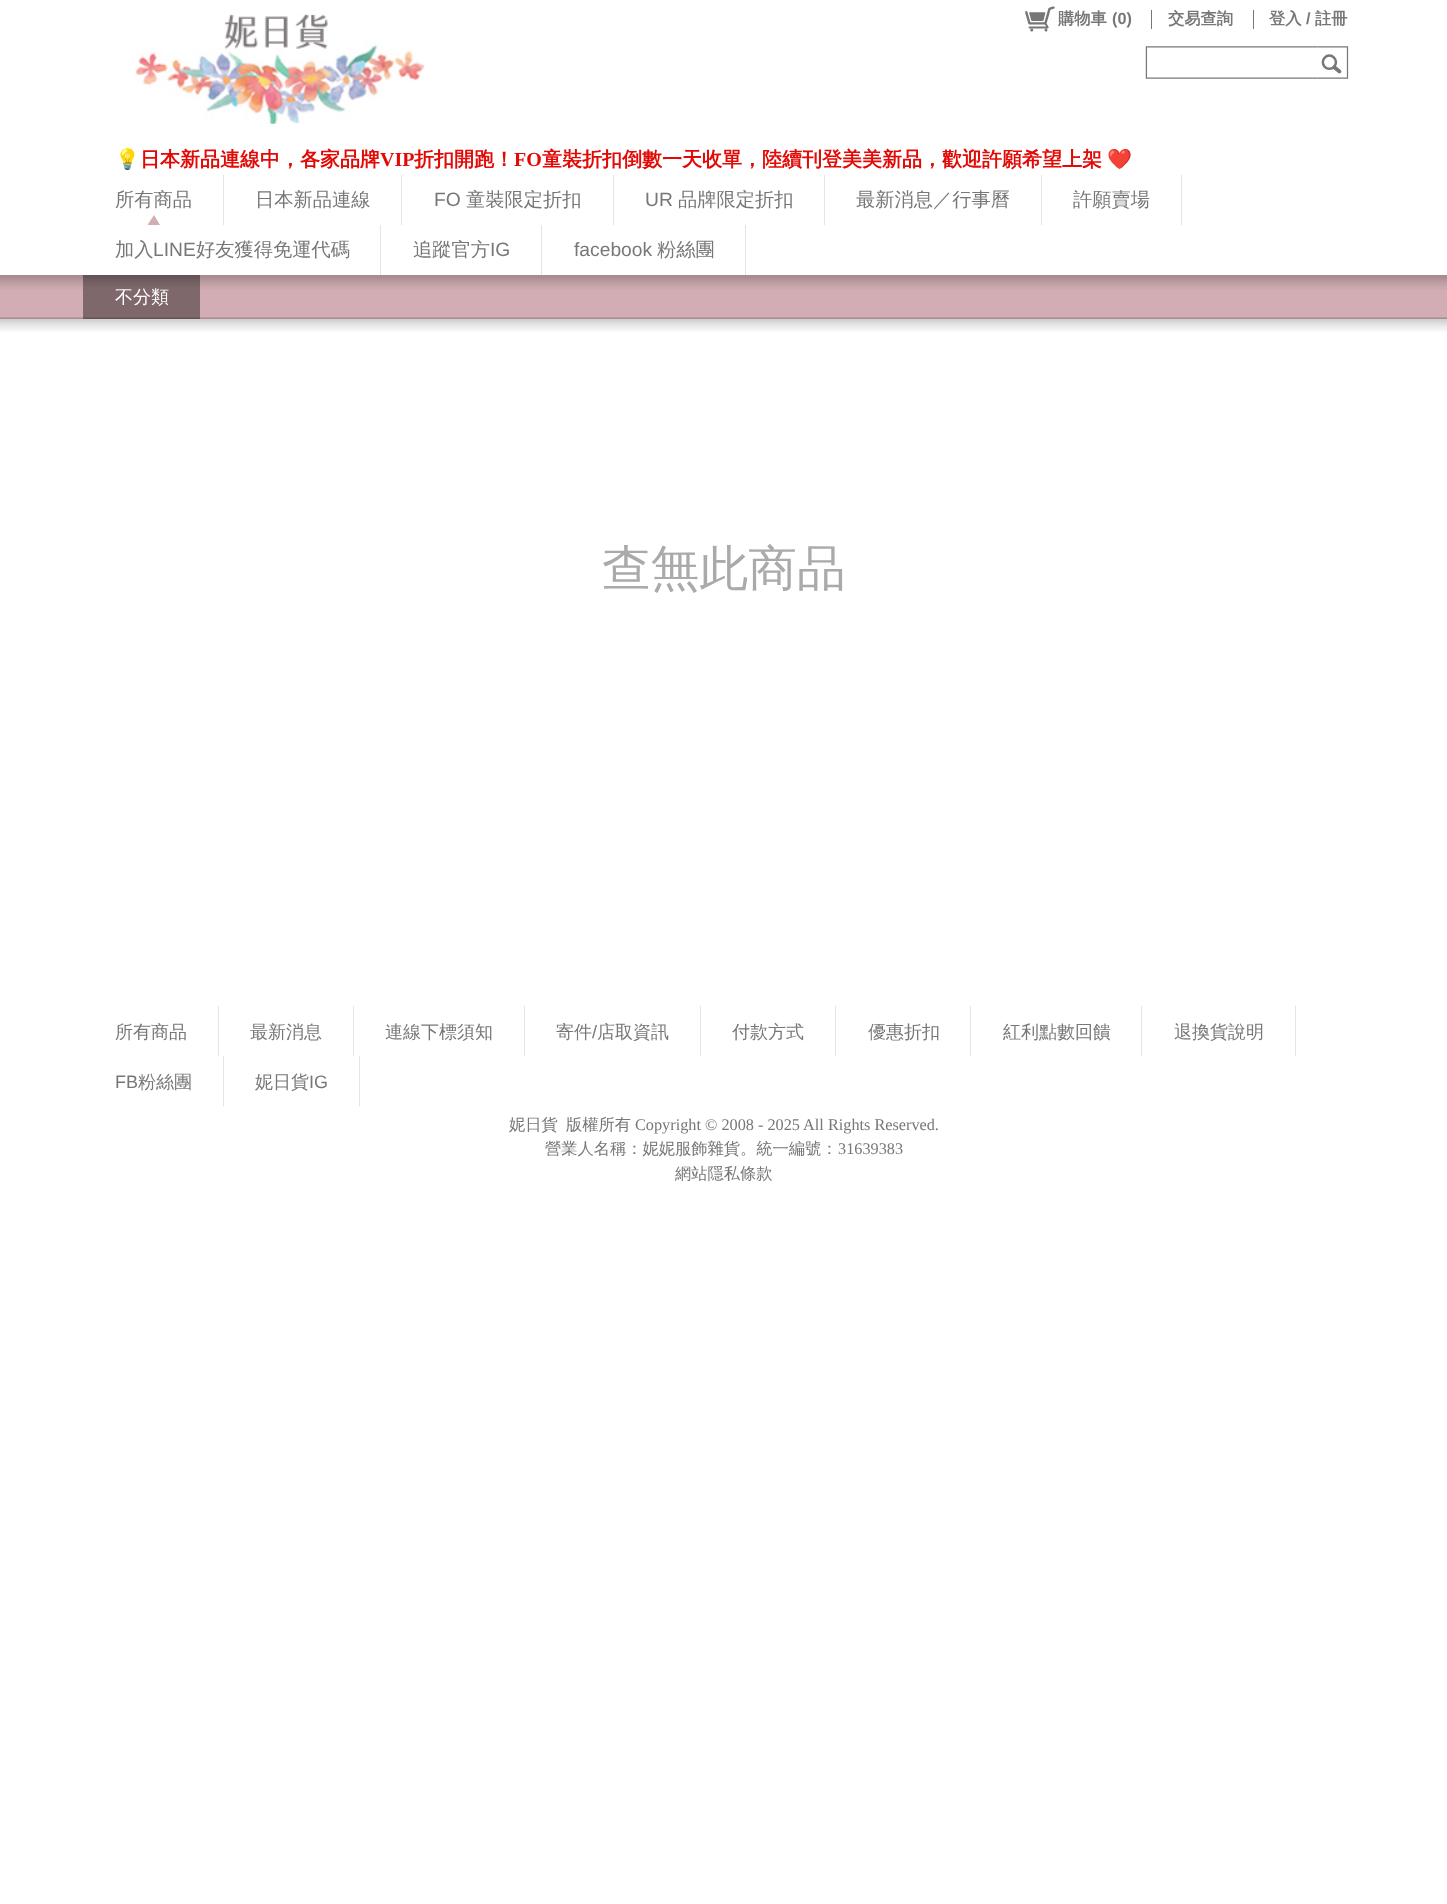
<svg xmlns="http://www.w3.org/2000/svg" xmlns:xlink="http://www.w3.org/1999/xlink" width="1447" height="1904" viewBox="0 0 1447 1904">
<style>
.cls-1{font:bold 16.25px WenQuanYi Zen Hei;fill:#777777}
.cls-2{font:bold 16.25px Liberation Sans;fill:#777777}
.cls-3{font:bold 20px Noto Color Emoji;fill:#e20a06}
.cls-4{font:bold 20px WenQuanYi Zen Hei;fill:#e20a06}
.cls-5{font:bold 20px Liberation Serif;fill:#e20a06}
.cls-6{font:500 19.25px WenQuanYi Zen Hei;fill:#777777}
.cls-7{font:19.25px Liberation Sans;fill:#777777}
.cls-8{font:500 18px WenQuanYi Zen Hei;fill:#ffffff}
.cls-9{font:500 48.75px WenQuanYi Zen Hei;fill:#aaaaaa}
.cls-10{font:500 18px WenQuanYi Zen Hei;fill:#777777}
.cls-11{font:18px Liberation Sans;fill:#777777}
.cls-12{font:500 16.25px WenQuanYi Zen Hei;fill:#777777}
.cls-13{font:16.25px Liberation Serif;fill:#777777}
</style>
<rect width="100%" height="100%" fill="#ffffff"/>
<image xlink:href="image0.png" x="135" y="13" width="290" height="111"/>
<image xlink:href="image1.png" x="1025" y="6" width="30" height="26"/>
<rect fill="#777777" x="1151" y="10" width="1" height="19"/>
<rect fill="#777777" x="1253" y="10" width="1" height="19"/>
<image xlink:href="image3.png" x="1317" y="46" width="32" height="33"/>
<image xlink:href="image2.png" x="1145" y="46" width="173" height="33"/>
<rect fill="#e4e4e4" x="223" y="175" width="1" height="50"/>
<path fill="#d2adb3" d="M160 225H147.5L154 215Z"/>
<rect fill="#e4e4e4" x="401" y="175" width="1" height="50"/>
<rect fill="#e4e4e4" x="613" y="175" width="1" height="50"/>
<rect fill="#e4e4e4" x="824" y="175" width="1" height="50"/>
<rect fill="#e4e4e4" x="1041" y="175" width="1" height="50"/>
<rect fill="#e4e4e4" x="1181" y="175" width="1" height="50"/>
<rect fill="#e4e4e4" x="380" y="225" width="1" height="50"/>
<rect fill="#e4e4e4" x="541" y="225" width="1" height="50"/>
<rect fill="#e4e4e4" x="745" y="225" width="1" height="50"/>
<rect fill="#d2adb3" x="0" y="275" width="1447" height="44"/>
<rect fill="#7e686b" x="83" y="275" width="117" height="44"/>
<image xlink:href="image5.png" x="0" y="317" width="1447" height="15"/>
<rect fill="#e4e4e4" x="218" y="1006" width="1" height="50"/>
<rect fill="#e4e4e4" x="353" y="1006" width="1" height="50"/>
<rect fill="#e4e4e4" x="524" y="1006" width="1" height="50"/>
<rect fill="#e4e4e4" x="700" y="1006" width="1" height="50"/>
<rect fill="#e4e4e4" x="835" y="1006" width="1" height="50"/>
<rect fill="#e4e4e4" x="970" y="1006" width="1" height="50"/>
<rect fill="#e4e4e4" x="1141" y="1006" width="1" height="50"/>
<rect fill="#e4e4e4" x="1295" y="1006" width="1" height="50"/>
<rect fill="#e4e4e4" x="223" y="1056" width="1" height="50"/>
<rect fill="#e4e4e4" x="359" y="1056" width="1" height="50"/>
<text class="cls-1" x="1058" y="24">購物車</text>
<text class="cls-2" x="1112" y="24">(0)</text>
<text class="cls-1" x="1168" y="24">交易查詢</text>
<text class="cls-1" x="1269" y="24">登入</text>
<text class="cls-2" x="1306" y="24">/</text>
<text class="cls-1" x="1315" y="24">註冊</text>
<text class="cls-3" x="115" y="166">💡</text>
<text class="cls-4" x="140" y="166">日本新品連線中，各家品牌</text>
<text class="cls-5" x="380" y="166">VIP</text>
<text class="cls-4" x="414" y="166">折扣開跑！</text>
<text class="cls-5" x="514" y="166">FO</text>
<text class="cls-4" x="542" y="166">童裝折扣倒數一天收單，陸續刊登美美新品，歡迎許願希望上架</text>
<text class="cls-3" x="1107" y="166">❤️</text>
<text class="cls-6" x="115" y="206">所有商品</text>
<text class="cls-6" x="255" y="206">日本新品連線</text>
<text class="cls-7" x="434" y="206">FO</text>
<text class="cls-6" x="466" y="206">童裝限定折扣</text>
<text class="cls-7" x="645" y="206">UR</text>
<text class="cls-6" x="678" y="206">品牌限定折扣</text>
<text class="cls-6" x="856" y="206">最新消息／行事曆</text>
<text class="cls-6" x="1073" y="206">許願賣場</text>
<text class="cls-6" x="115" y="256">加入</text>
<text class="cls-7" x="153" y="256">LINE</text>
<text class="cls-6" x="196" y="256">好友獲得免運代碼</text>
<text class="cls-6" x="413" y="256">追蹤官方</text>
<text class="cls-7" x="490" y="256">IG</text>
<text class="cls-7" x="574" y="256">facebook</text>
<text class="cls-6" x="657" y="256">粉絲團</text>
<text class="cls-8" x="115" y="303">不分類</text>
<image xlink:href="image4.png" x="0" y="275" width="1447" height="15"/>
<text class="cls-9" x="602" y="585">查無此商品</text>
<text class="cls-10" x="115" y="1038">所有商品</text>
<text class="cls-10" x="250" y="1038">最新消息</text>
<text class="cls-10" x="385" y="1038">連線下標須知</text>
<text class="cls-10" x="556" y="1038">寄件</text>
<text class="cls-11" x="592" y="1038">/</text>
<text class="cls-10" x="597" y="1038">店取資訊</text>
<text class="cls-10" x="732" y="1038">付款方式</text>
<text class="cls-10" x="868" y="1038">優惠折扣</text>
<text class="cls-10" x="1003" y="1038">紅利點數回饋</text>
<text class="cls-10" x="1174" y="1038">退換貨說明</text>
<text class="cls-11" x="115" y="1088">FB</text>
<text class="cls-10" x="138" y="1088">粉絲團</text>
<text class="cls-10" x="255" y="1088">妮日貨</text>
<text class="cls-11" x="309" y="1088">IG</text>
<text class="cls-12" x="509" y="1130">妮日貨</text>
<text class="cls-12" x="566" y="1130">版權所有</text>
<text class="cls-13" x="635" y="1130">Copyright © 2008 - 2025 All Rights Reserved.</text>
<text class="cls-12" x="545" y="1154">營業人名稱：妮妮服飾雜貨。統一編號：</text>
<text class="cls-13" x="838" y="1154">31639383</text>
<text class="cls-12" x="675" y="1179">網站隱私條款</text>
</svg>
